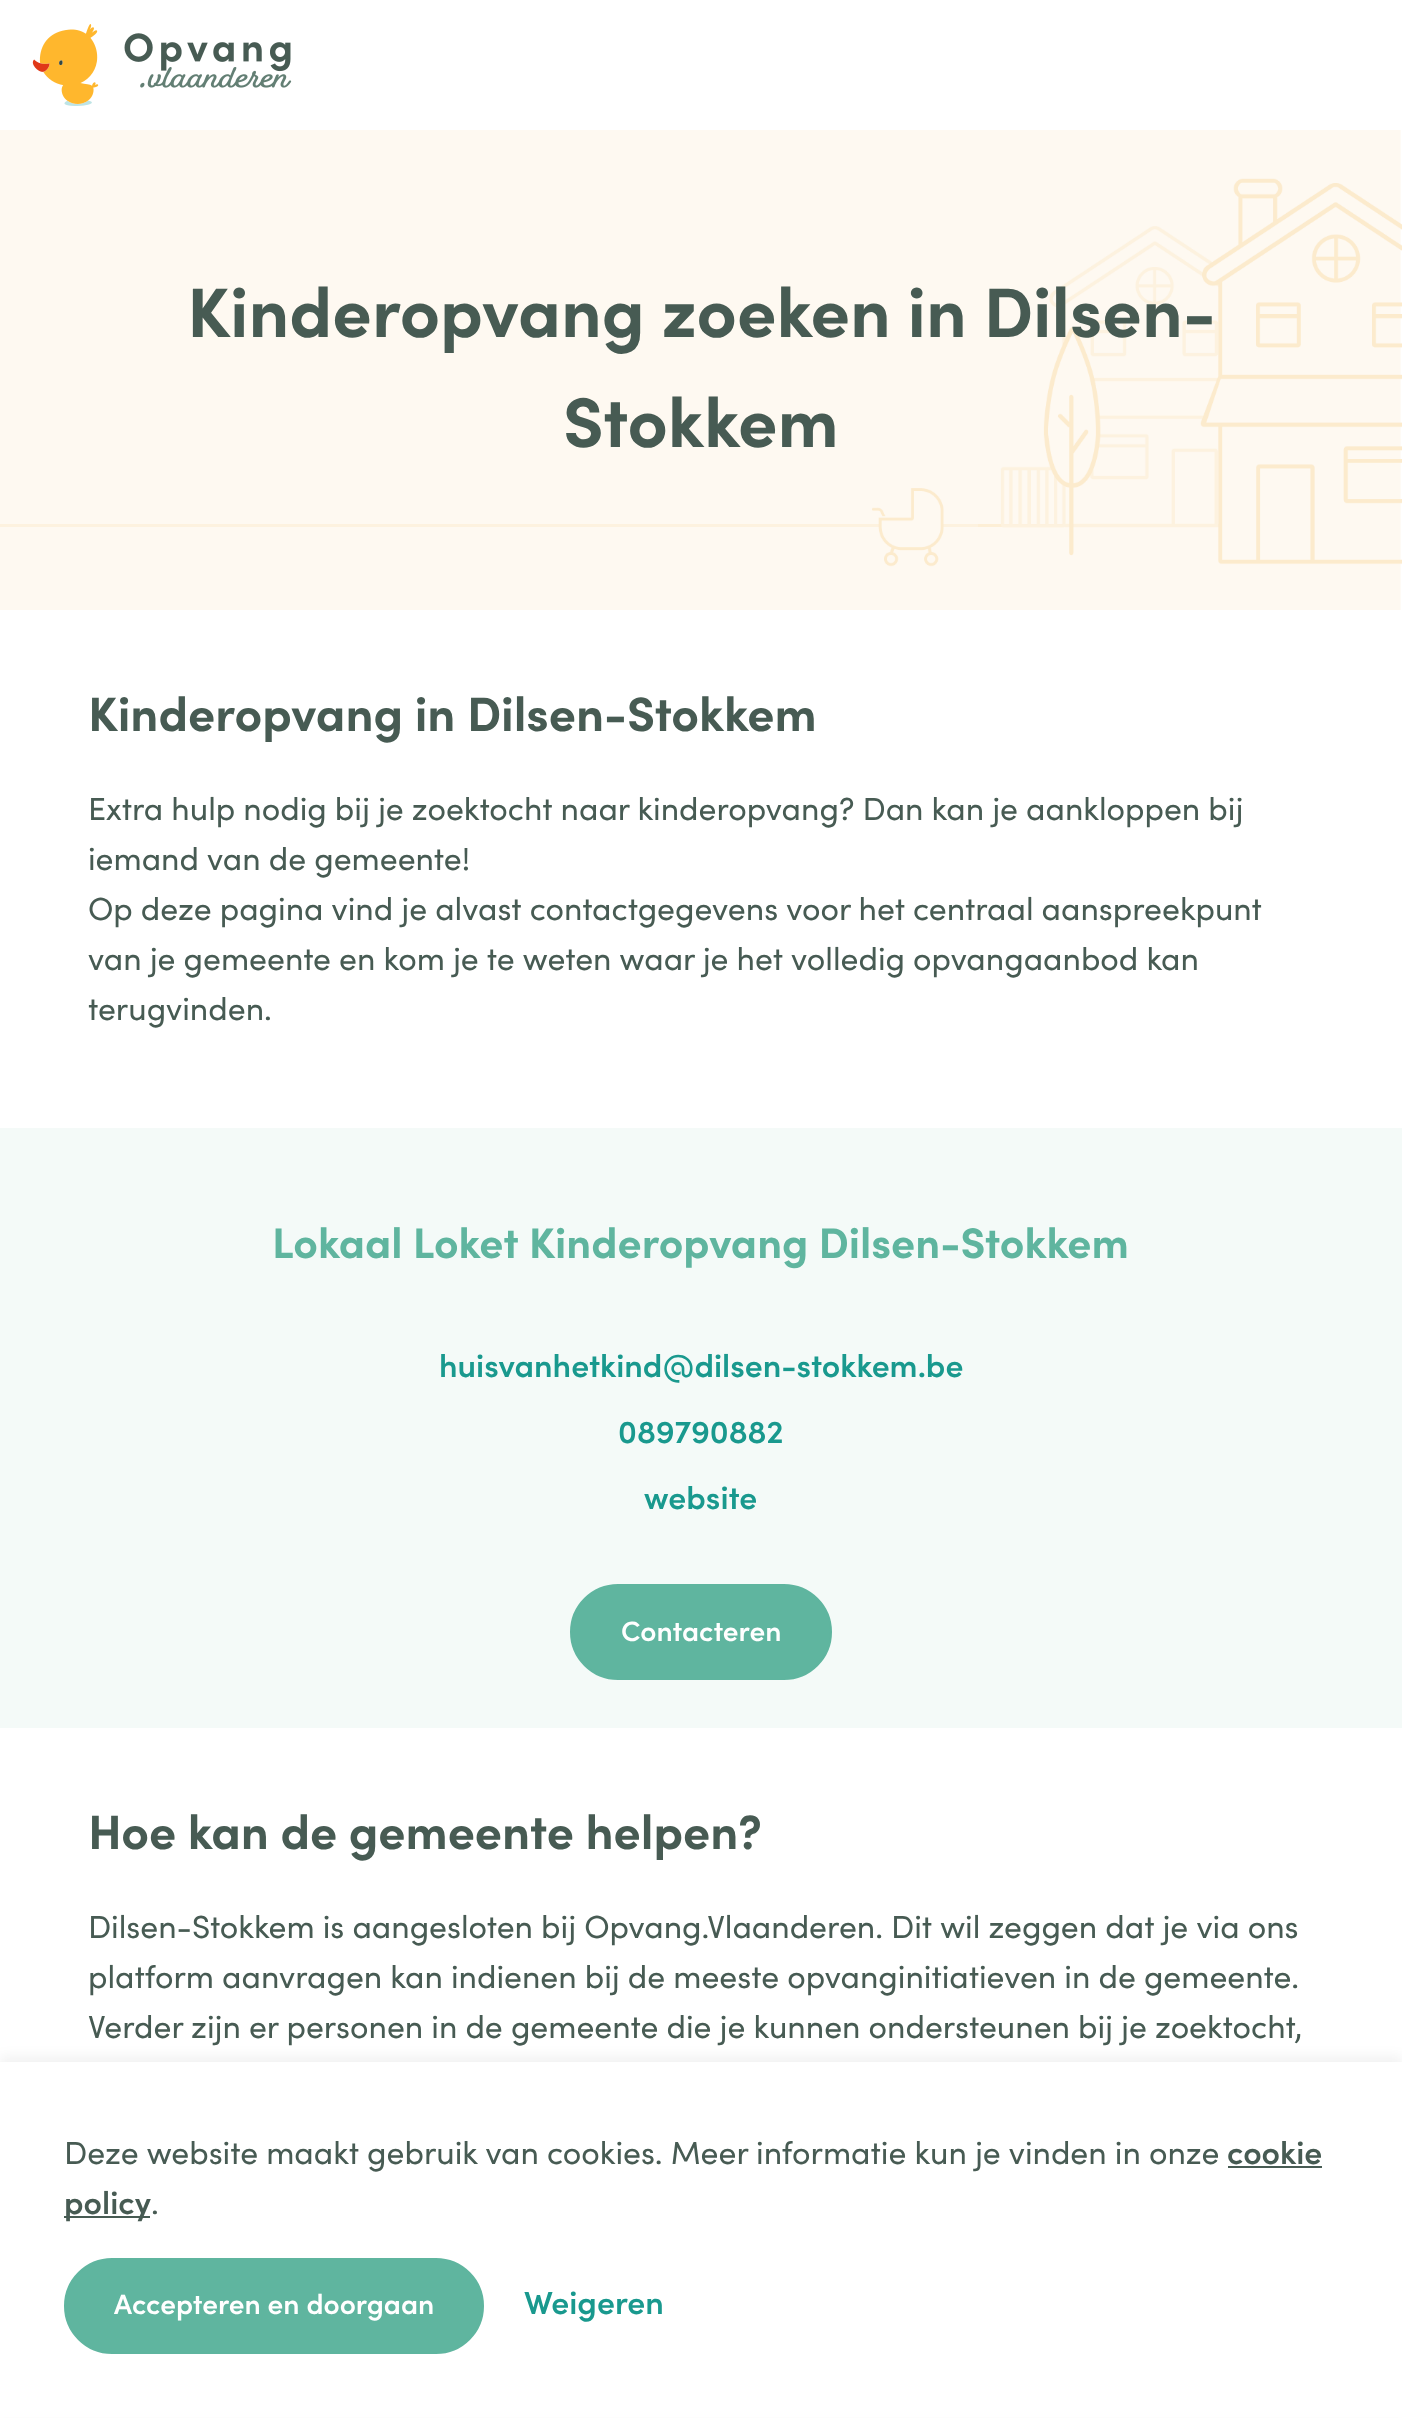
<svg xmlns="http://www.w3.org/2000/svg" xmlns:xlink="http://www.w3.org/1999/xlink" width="1402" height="2418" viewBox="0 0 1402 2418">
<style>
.cls-1{font:bold 70.1px Sofia;fill:#475b53}
.cls-2{font:bold 48.25px Sofia;fill:#475b53}
.cls-3{font:32px Sofia;fill:#475b53}
.cls-4{font:bold 42.8px Sofia;fill:#5fb59f}
.cls-5{font:600 32px Sofia;fill:#19998e}
.cls-6{font:600 28px Sofia;fill:#ffffff}
.cls-7{font:600 32px Sofia;fill:#475b53}
</style>
<rect width="100%" height="100%" fill="#ffffff"/>
<image xlink:href="image0.png" x="32" y="24" width="260" height="82"/>
<image xlink:href="image1.png" x="0" y="130" width="1402" height="480"/>
<rect fill="#f4faf8" x="0" y="1128" width="1402" height="600"/>
<rect fill="#5fb59f" stroke="#5fb59f" stroke-width="2" x="571" y="1585" width="260" height="94" rx="47"/>
<rect fill="#000000" fill-opacity="0.05" filter="blur(6px)" x="0" y="2056" width="1402" height="356"/>
<rect fill="#ffffff" x="0" y="2062" width="1402" height="355"/>
<rect fill="#475b53" x="1228" y="2166" width="94" height="2"/>
<rect fill="#475b53" x="64" y="2216" width="86" height="2"/>
<rect fill="#5fb59f" stroke="#5fb59f" stroke-width="2" x="65" y="2259" width="418" height="94" rx="47"/>
<text class="cls-1" x="187" y="337">Kinderopvang zoeken in Dilsen-</text>
<text class="cls-1" x="563" y="447">Stokkem</text>
<text class="cls-2" x="88" y="731">Kinderopvang in Dilsen-Stokkem</text>
<text class="cls-3"><tspan x="88" y="820">Extra hulp nodig bij je zoektocht naar kinderopvang? Dan kan je aankloppen bij</tspan><tspan x="88" y="870">iemand van de gemeente!</tspan><tspan x="88" y="920">Op deze pagina vind je alvast contactgegevens voor het centraal aanspreekpunt</tspan><tspan x="88" y="970">van je gemeente en kom je te weten waar je het volledig opvangaanbod kan</tspan><tspan x="88" y="1020">terugvinden.</tspan></text>
<text class="cls-4" x="272" y="1258">Lokaal Loket Kinderopvang Dilsen-Stokkem</text>
<text class="cls-5" x="439" y="1377">huisvanhetkind@dilsen-stokkem.be</text>
<text class="cls-5" x="618" y="1443">089790882</text>
<text class="cls-5" x="644" y="1509">website</text>
<text class="cls-6" x="621" y="1641">Contacteren</text>
<text class="cls-2" x="88" y="1849">Hoe kan de gemeente helpen?</text>
<text class="cls-3"><tspan x="88" y="1938">Dilsen-Stokkem is aangesloten bij Opvang.Vlaanderen. Dit wil zeggen dat je via ons</tspan><tspan x="88" y="1988">platform aanvragen kan indienen bij de meeste opvanginitiatieven in de gemeente.</tspan><tspan x="88" y="2038">Verder zijn er personen in de gemeente die je kunnen ondersteunen bij je zoektocht,</tspan></text>
<text class="cls-3" x="64" y="2164">Deze website maakt gebruik van cookies. Meer informatie kun je vinden in onze</text>
<text class="cls-7" x="1227" y="2164">cookie</text>
<text class="cls-7" x="64" y="2214">policy</text>
<text class="cls-3" x="151" y="2214">.</text>
<text class="cls-6" x="114" y="2314">Accepteren en doorgaan</text>
<text class="cls-5" x="524" y="2314">Weigeren</text>
</svg>
